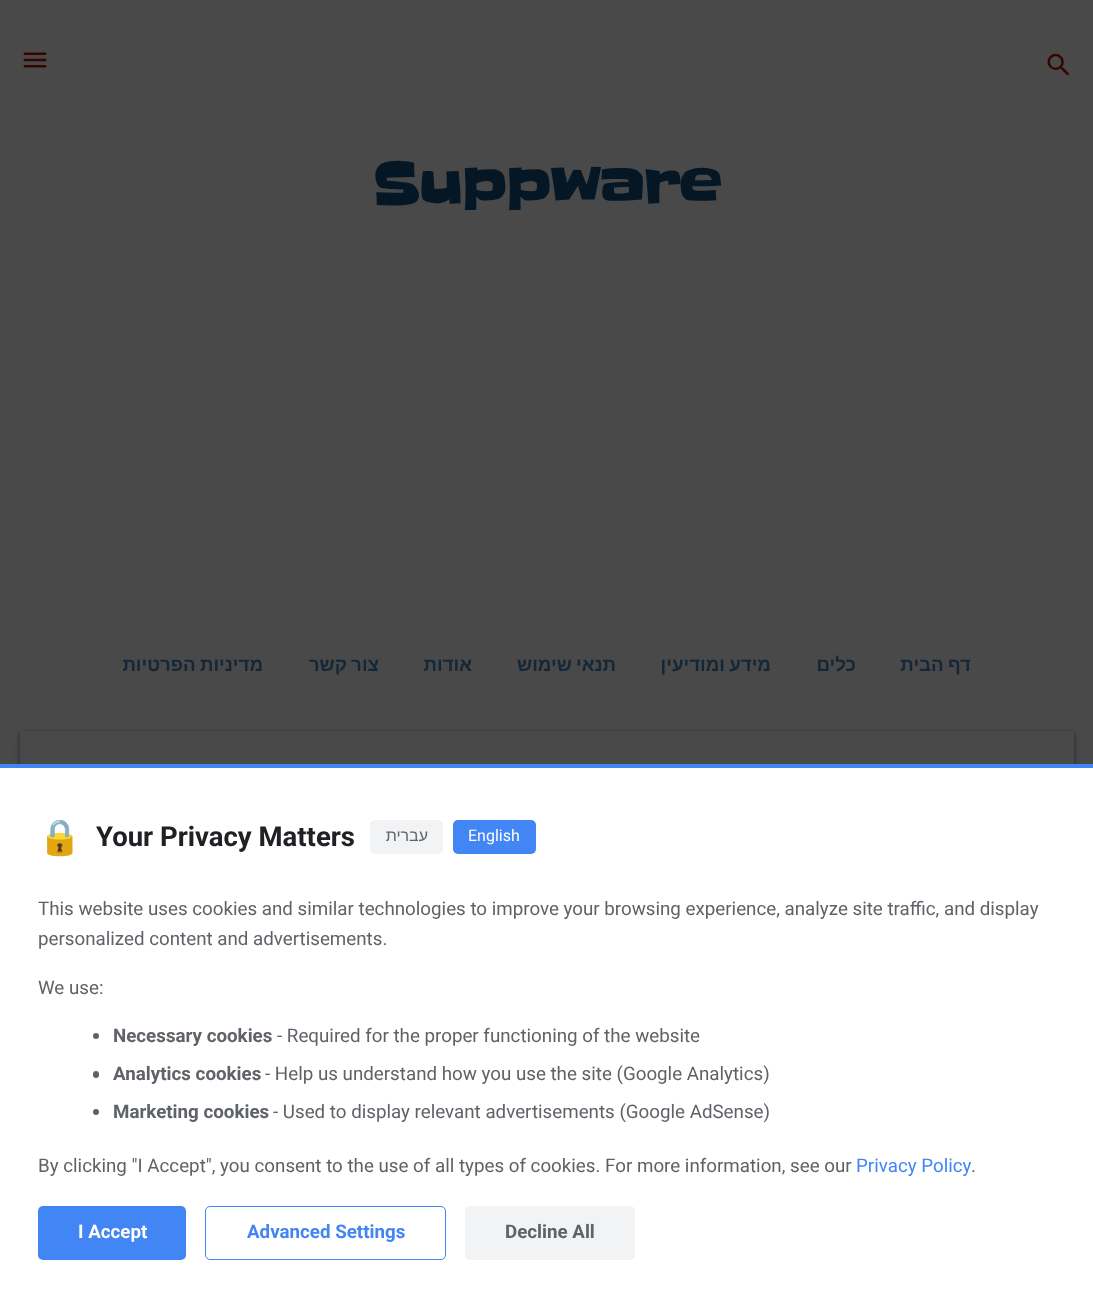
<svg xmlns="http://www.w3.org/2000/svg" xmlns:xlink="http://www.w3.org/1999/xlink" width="1093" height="1291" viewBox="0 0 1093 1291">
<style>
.cls-1{font:bold 56.25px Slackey;fill:#051725}
.cls-2{font:bold 18.75px Liberation Sans;direction:rtl;fill:#152736}
.cls-3{font:35px Noto Color Emoji;fill:#757575}
.cls-4{font:bold 27.5px Roboto;fill:#202124}
.cls-5{font:16px Liberation Sans;direction:rtl;fill:#5f6368}
.cls-6{font:16px Roboto;fill:#ffffff}
.cls-7{font:18.75px Roboto;fill:#5f6368}
.cls-8{font:bold 18.75px Roboto;fill:#5f6368}
.cls-9{font:18.75px Roboto;fill:#4285f4}
.cls-10{font:bold 18.75px Roboto;fill:#ffffff}
.cls-11{font:bold 18.75px Roboto;fill:#4285f4}
</style>
<rect width="100%" height="100%" fill="#494949"/>
<image xlink:href="image0.png" x="23" y="52" width="24" height="16"/>
<image xlink:href="image1.png" x="1047" y="53" width="23" height="23"/>
<rect fill="#152736" filter="blur(2.5px)" x="20" y="733" width="1054" height="125"/>
<rect fill="#494949" x="20" y="731" width="1054" height="33"/>
<rect fill="#ffffff" x="0" y="768" width="1093" height="523"/>
<rect fill="#4285f4" x="0" y="764" width="1093" height="4"/>
<rect fill="#f1f3f4" x="370" y="820" width="73" height="34" rx="5"/>
<rect fill="#4285f4" x="453" y="820" width="83" height="34" rx="5"/>
<circle fill="#5f6368" cx="96" cy="1036" r="3"/>
<rect fill="#5f6368" x="93" y="1071" width="6" height="7" rx="3"/>
<circle fill="#5f6368" cx="96" cy="1112" r="3"/>
<rect fill="#4285f4" x="38" y="1206" width="148" height="54" rx="5"/>
<rect fill="none" stroke="#4285f4" x="205.5" y="1206.5" width="240" height="53" rx="4.5"/>
<rect fill="#f1f3f4" x="465" y="1206" width="170" height="54" rx="5"/>
<text class="cls-1" x="372" y="206">Suppware</text>
<text class="cls-2" x="263" y="671" word-spacing="-1">מדיניות הפרטיות</text>
<text class="cls-2" x="379" y="671" word-spacing="-1">צור קשר</text>
<text class="cls-2" x="472" y="671">אודות</text>
<text class="cls-2" x="616" y="671" word-spacing="-1">תנאי שימוש</text>
<text class="cls-2" x="771" y="671" word-spacing="-1">מידע ומודיעין</text>
<text class="cls-2" x="856" y="671">כלים</text>
<text class="cls-2" x="971" y="671" word-spacing="-1">דף הבית</text>
<text class="cls-3" x="38" y="849">🔒</text>
<text class="cls-4" x="96" y="846">Your Privacy Matters</text>
<text class="cls-5" x="428" y="841">עברית</text>
<text class="cls-6" x="468" y="841">English</text>
<text class="cls-7"><tspan x="38" y="915">This website uses cookies and similar technologies to improve your browsing experience, analyze site traffic, and display</tspan><tspan x="38" y="945">personalized content and advertisements.</tspan></text>
<text class="cls-7" x="38" y="994">We use:</text>
<text class="cls-8" x="113" y="1042">Necessary cookies</text>
<text class="cls-7" x="277" y="1042">- Required for the proper functioning of the website</text>
<text class="cls-8" x="113" y="1080">Analytics cookies</text>
<text class="cls-7" x="265" y="1080">- Help us understand how you use the site (Google Analytics)</text>
<text class="cls-8" x="113" y="1118">Marketing cookies</text>
<text class="cls-7" x="273" y="1118">- Used to display relevant advertisements (Google AdSense)</text>
<text class="cls-7" x="38" y="1172">By clicking "I Accept", you consent to the use of all types of cookies. For more information, see our</text>
<text class="cls-9" x="856" y="1172">Privacy Policy</text>
<text class="cls-7" x="971" y="1172">.</text>
<text class="cls-10" x="78" y="1238">I Accept</text>
<text class="cls-11" x="247" y="1238">Advanced Settings</text>
<text class="cls-8" x="505" y="1238">Decline All</text>
</svg>
